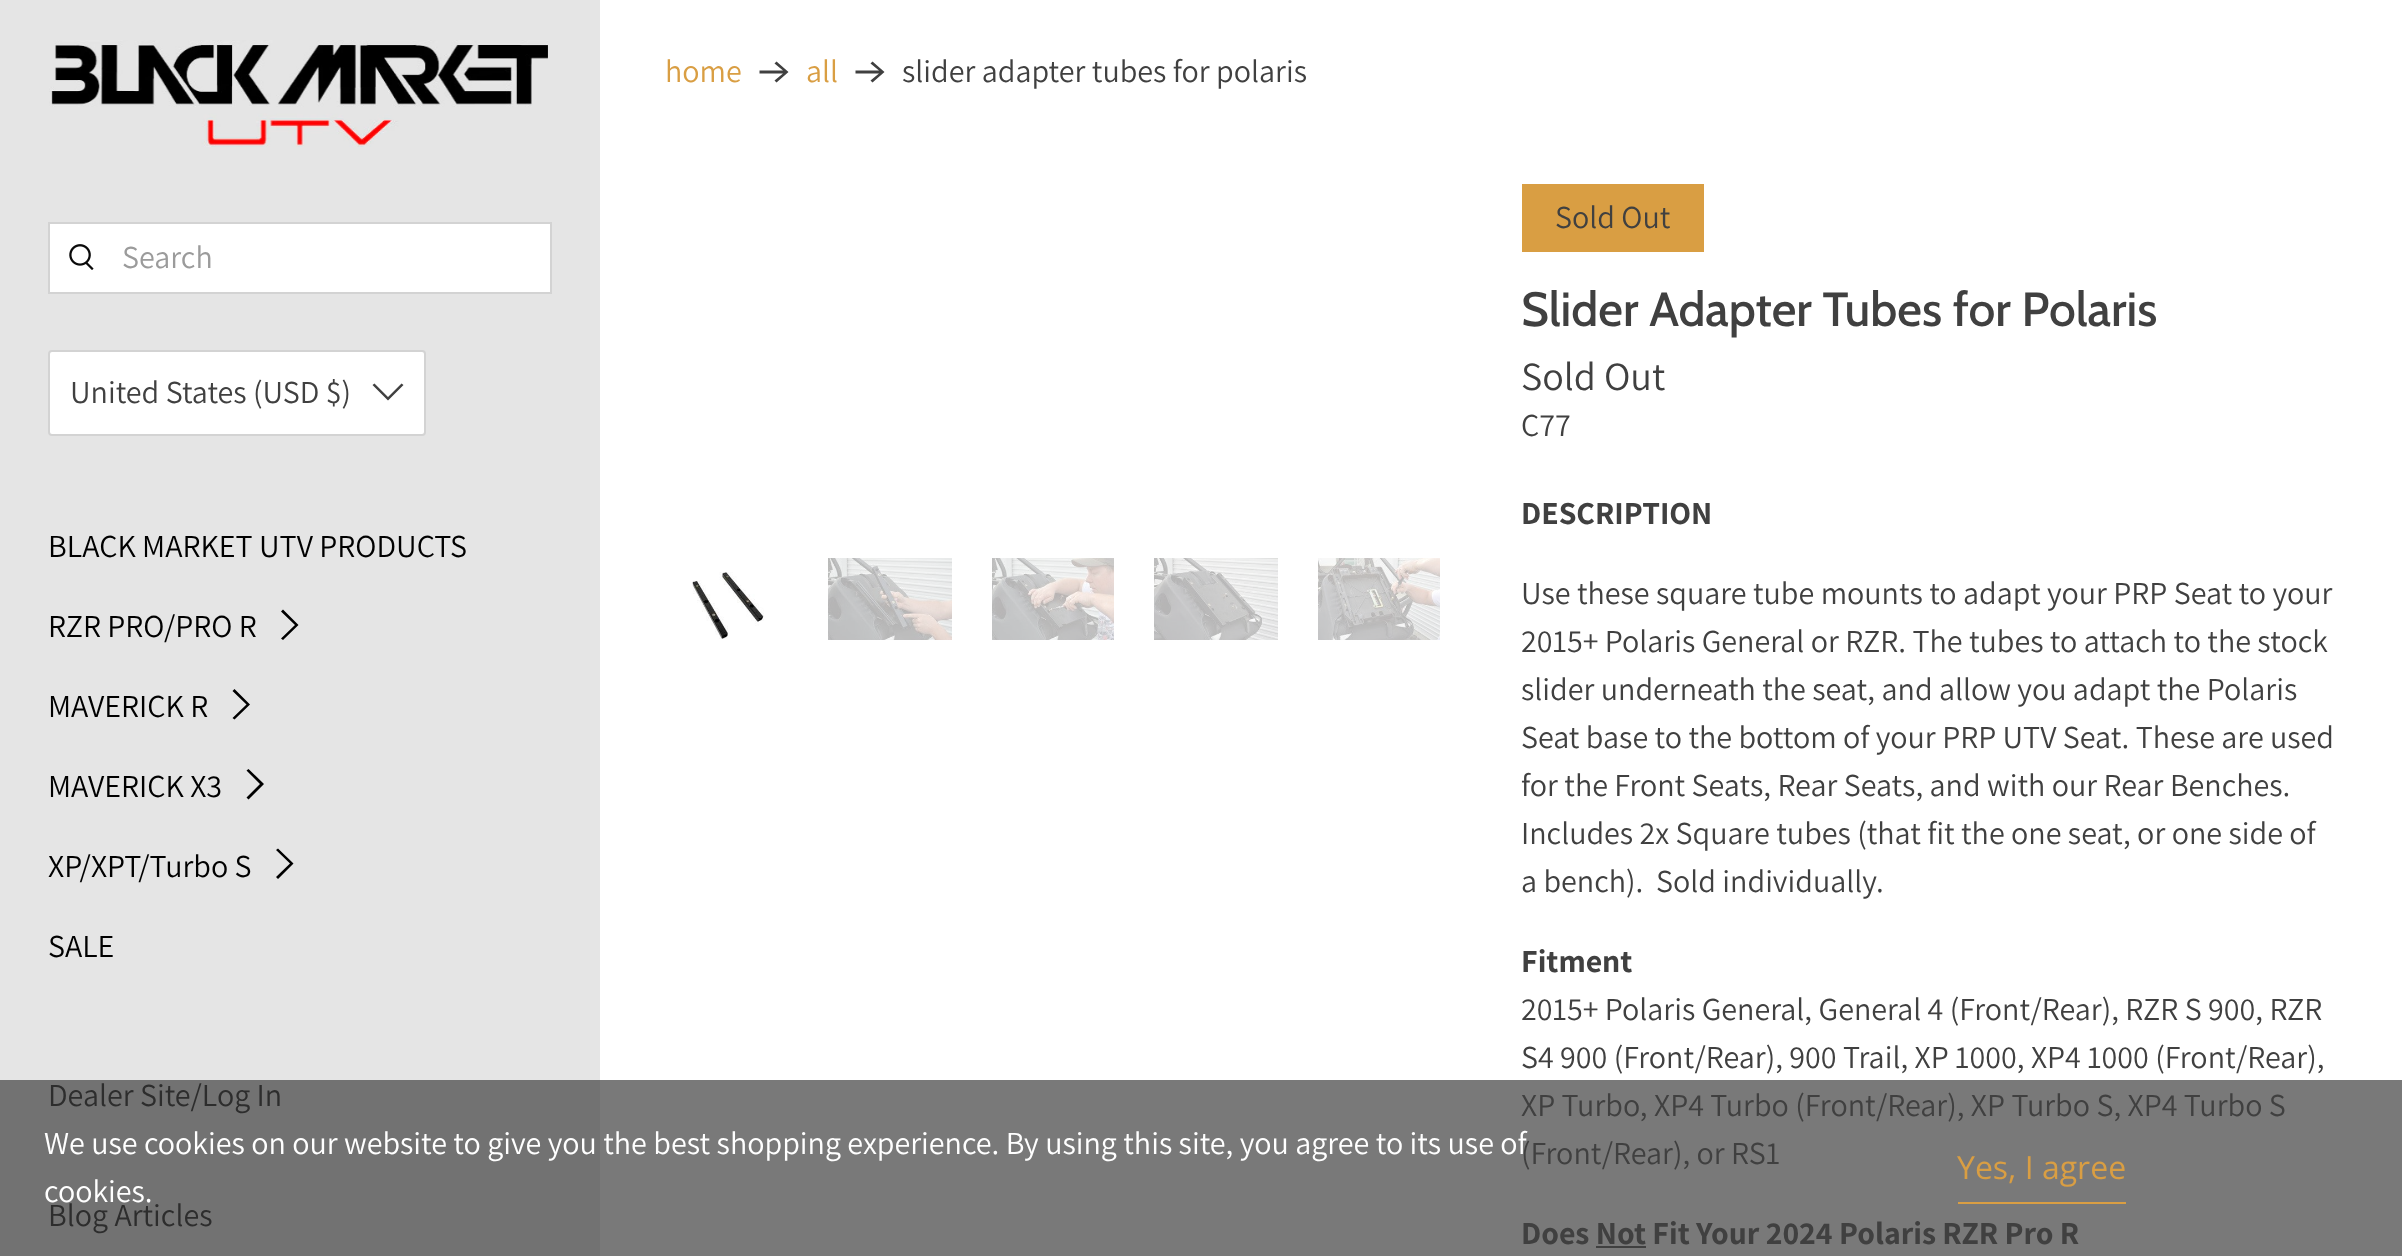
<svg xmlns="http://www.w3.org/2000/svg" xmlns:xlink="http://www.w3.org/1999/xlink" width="2402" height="1256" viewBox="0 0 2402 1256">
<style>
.cls-1{font:32px Assistant;fill:#9b9b9b}
.cls-2{font:32px Assistant;fill:#404040}
.cls-3{font:32px Assistant;fill:#000000}
.cls-4{font:32px Assistant;fill:#2d2d2d}
.cls-5{font:32px Assistant;fill:#d99e43}
.cls-6{font:500 48px Cabin;fill:#404040}
.cls-7{font:40px Assistant;fill:#404040}
.cls-8{font:bold 32px Assistant;fill:#404040}
.cls-9{font:32px Assistant;fill:#ffffff}
.cls-10{font:32px Open Sans;fill:#d99e43}
</style>
<rect width="100%" height="100%" fill="#ffffff"/>
<rect fill="#797979" x="600" y="1080" width="1802" height="176"/>
<rect fill="#e5e5e5" x="0" y="0" width="600" height="1080"/>
<rect fill="#727272" x="0" y="1080" width="600" height="176"/>
<image xlink:href="image0.png" x="49" y="40" width="499" height="107"/>
<rect fill="#ffffff" stroke="#d3d3d3" stroke-width="2" x="49" y="223" width="502" height="70"/>
<image xlink:href="image1.png" x="69" y="244" width="25" height="26"/>
<rect fill="#ffffff" stroke="#d3d3d3" stroke-width="2" x="49" y="351" width="376" height="84" rx="3"/>
<path fill="#404040" d="M388 400.5L372.5 385L374.5 383.5L388 397L401.5 383.5L403.5 385Z"/>
<path fill="#000000" d="M298.5 625L283 640L281 638.5L295 625L281 611.5L283 609.5Z"/>
<path fill="#000000" d="M250 704.5L234.5 719.5L232.5 718L246.5 704.5L232.5 691L234.5 689Z"/>
<path fill="#000000" d="M264 784L248.5 799.5L246.5 797.5L260 784L246.5 770.5L248.5 769Z"/>
<path fill="#000000" d="M293.5 863.5L278 879L276 877L290 863.5L276 850L278 848.5Z"/>
<path fill="#404040" d="M776.5 61.5L774.5 63.5L783 70.5H759.5V73.5H783L774.5 80.5L776.5 82.5L788.5 72Z"/>
<path fill="#404040" d="M872.5 61.5L870.5 63.5L879 70.5H855.5V73.5H879L870.5 80.5L872.5 82.5L884.5 72Z"/>
<image xlink:href="image2.png" x="692" y="572" width="72" height="67"/>
<image xlink:href="image3.png" x="828" y="558" width="124" height="82"/>
<image xlink:href="image4.png" x="992" y="558" width="122" height="82"/>
<image xlink:href="image5.png" x="1154" y="558" width="124" height="82"/>
<image xlink:href="image6.png" x="1318" y="558" width="122" height="82"/>
<rect fill="#d99e43" x="1522" y="184" width="182" height="68"/>
<rect fill="#404040" x="1596" y="1246" width="50" height="2"/>
<rect fill="#d99e43" x="1958" y="1202" width="168" height="2"/>
<text class="cls-1" x="122" y="268">Search</text>
<text class="cls-2" x="70" y="403">United States (USD $)</text>
<text class="cls-3" x="48" y="557">BLACK MARKET UTV PRODUCTS</text>
<text class="cls-3" x="48" y="637">RZR PRO/PRO R</text>
<text class="cls-3" x="48" y="717">MAVERICK R</text>
<text class="cls-3" x="48" y="797">MAVERICK X3</text>
<text class="cls-3" x="48" y="877">XP/XPT/Turbo S</text>
<text class="cls-3" x="48" y="957">SALE</text>
<text class="cls-4" x="48" y="1106">Dealer Site/Log In</text>
<text class="cls-4" x="48" y="1226">Blog Articles</text>
<text class="cls-5" x="665" y="82">home</text>
<text class="cls-5" x="806" y="82">all</text>
<text class="cls-2" x="902" y="82">slider adapter tubes for polaris</text>
<text class="cls-2" x="1555" y="228">Sold Out</text>
<text class="cls-6" x="1521" y="326">Slider Adapter Tubes for Polaris</text>
<text class="cls-7" x="1521" y="390">Sold Out</text>
<text class="cls-2" x="1521" y="436">C77</text>
<text class="cls-8" x="1521" y="524">DESCRIPTION</text>
<text class="cls-2" xml:space="preserve"><tspan x="1521" y="604">Use these square tube mounts to adapt your PRP Seat to your</tspan><tspan x="1521" y="652">2015+ Polaris General or RZR. The tubes to attach to the stock</tspan><tspan x="1521" y="700">slider underneath the seat, and allow you adapt the Polaris</tspan><tspan x="1521" y="748">Seat base to the bottom of your PRP UTV Seat. These are used</tspan><tspan x="1521" y="796">for the Front Seats, Rear Seats, and with our Rear Benches.</tspan><tspan x="1521" y="844">Includes 2x Square tubes (that fit the one seat, or one side of</tspan><tspan x="1521" y="892">a bench).  Sold individually.</tspan></text>
<text class="cls-8" x="1521" y="972">Fitment</text>
<text class="cls-2"><tspan x="1521" y="1020">2015+ Polaris General, General 4 (Front/Rear), RZR S 900, RZR</tspan><tspan x="1521" y="1068">S4 900 (Front/Rear), 900 Trail, XP 1000, XP4 1000 (Front/Rear),</tspan><tspan x="1521" y="1116">XP Turbo, XP4 Turbo (Front/Rear), XP Turbo S, XP4 Turbo S</tspan><tspan x="1521" y="1164">(Front/Rear), or RS1</tspan></text>
<text class="cls-8" x="1521" y="1244">Does Not Fit Your 2024 Polaris RZR Pro R</text>
<text class="cls-9"><tspan x="44" y="1154">We use cookies on our website to give you the best shopping experience. By using this site, you agree to its use of</tspan><tspan x="44" y="1202">cookies.</tspan></text>
<text class="cls-10" x="1957" y="1179">Yes, I agree</text>
</svg>
